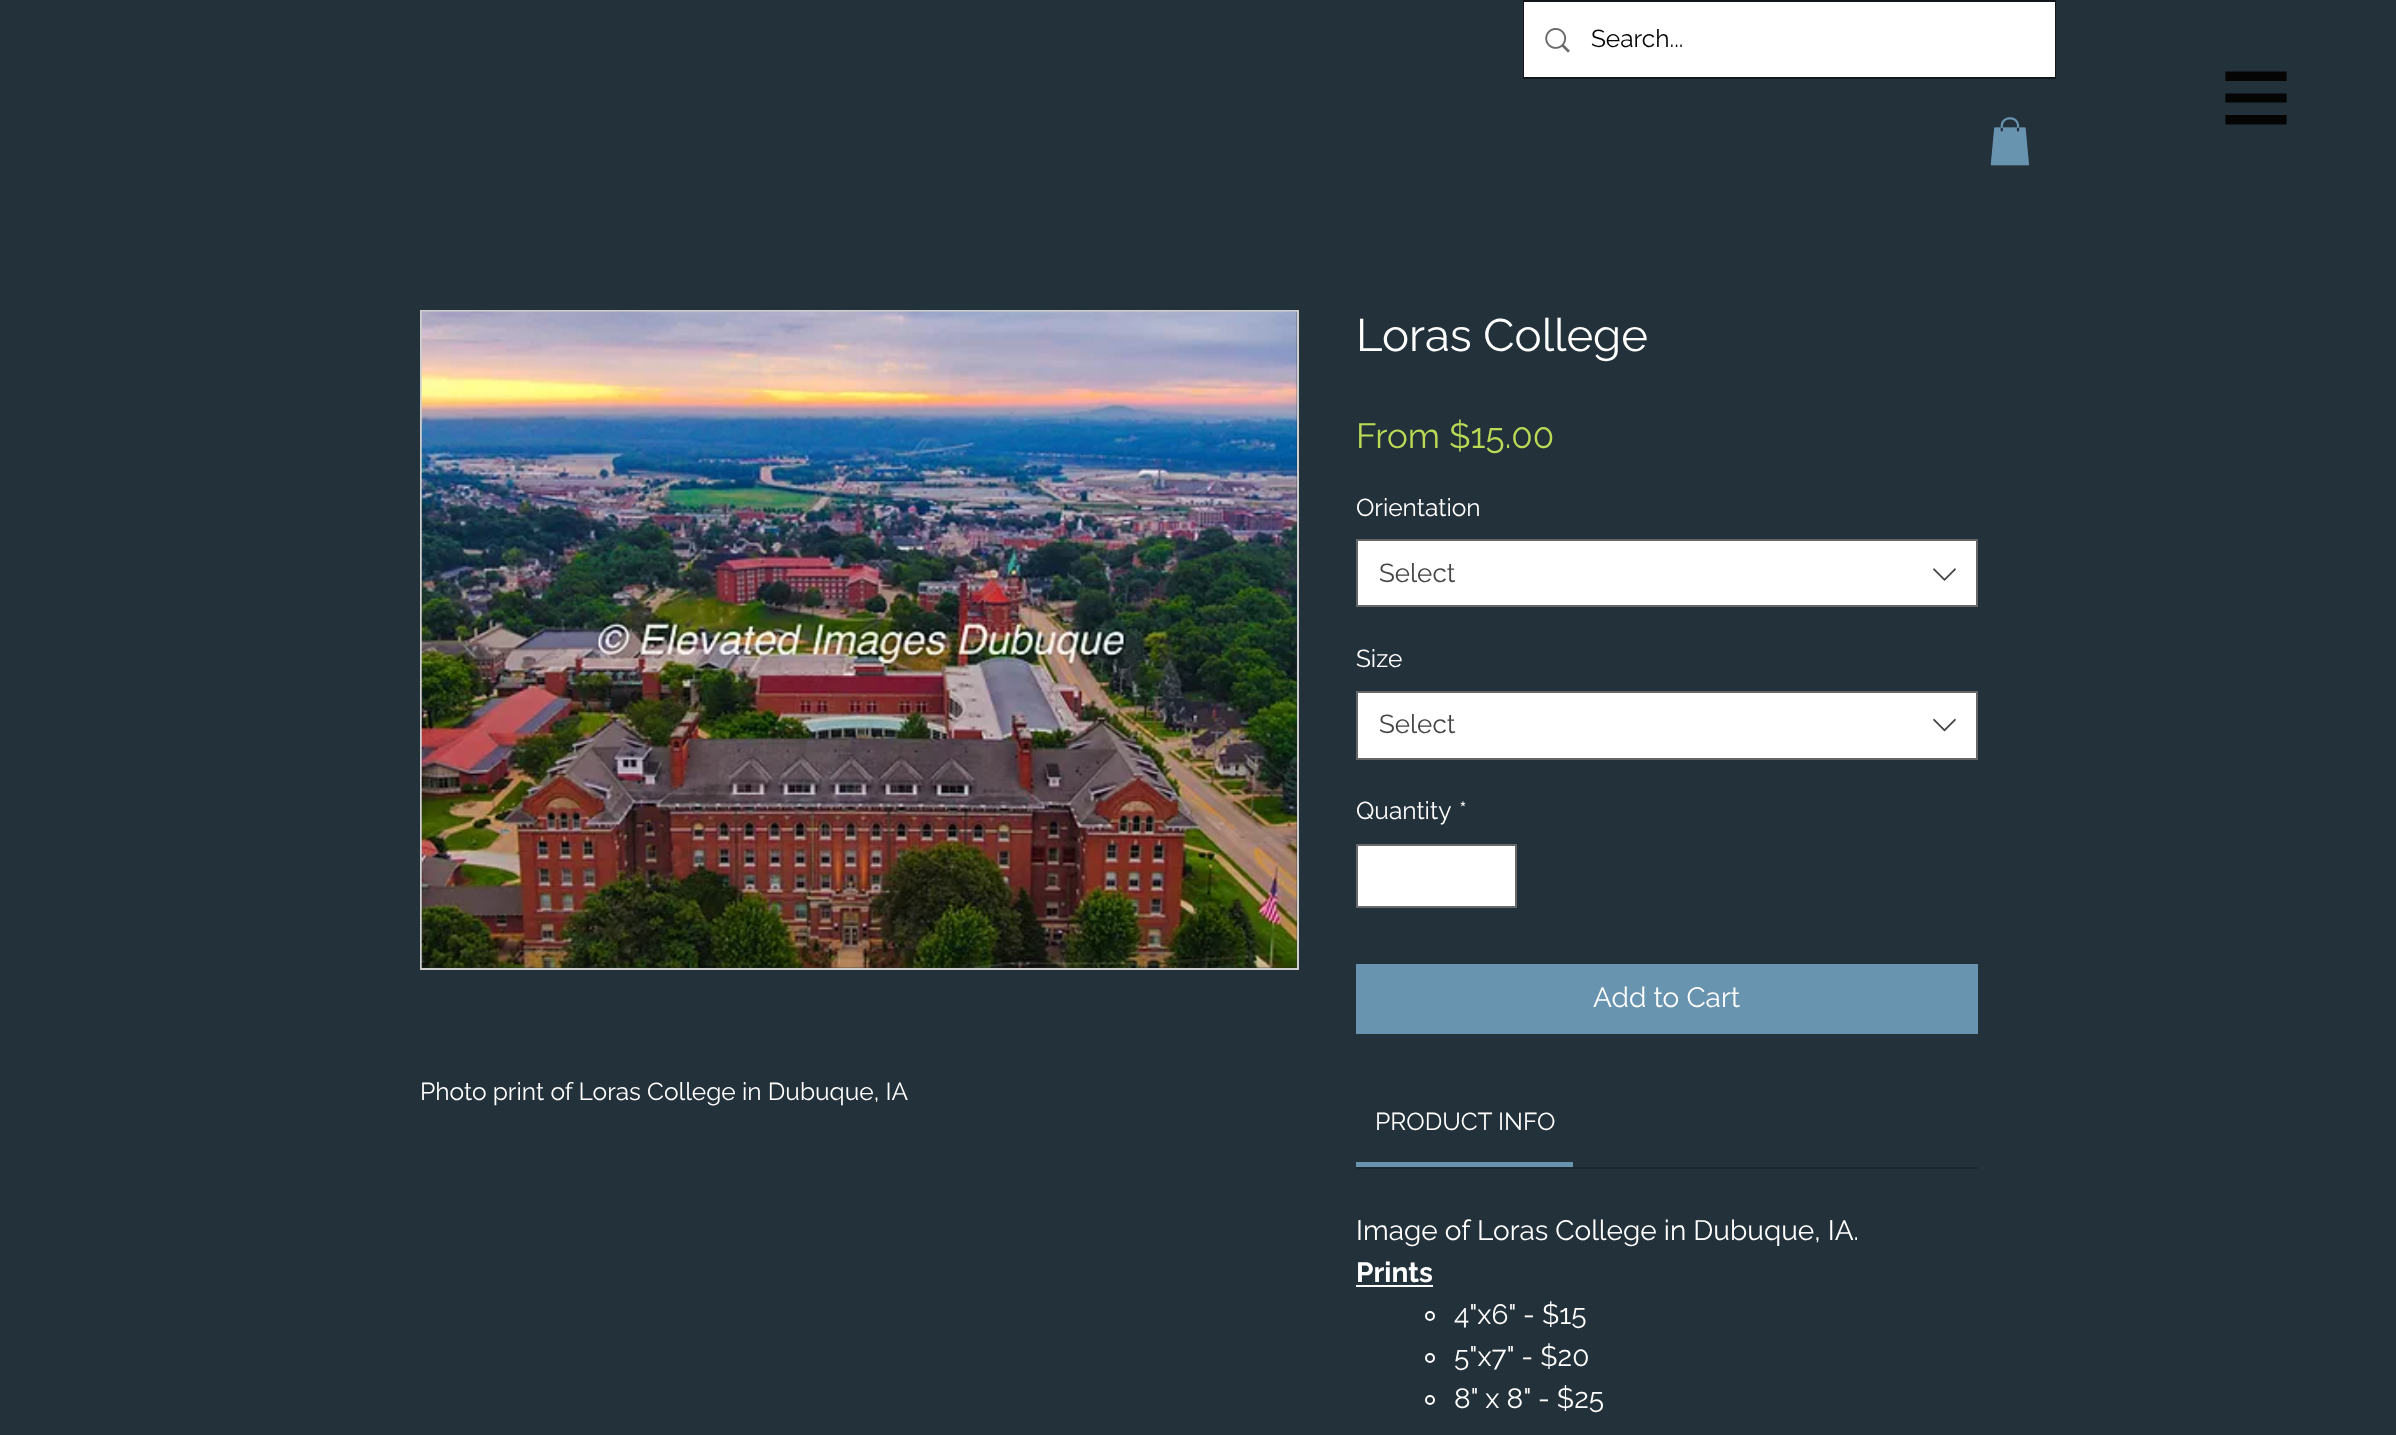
<svg xmlns="http://www.w3.org/2000/svg" xmlns:xlink="http://www.w3.org/1999/xlink" width="2396" height="1435" viewBox="0 0 2396 1435">
<style>
.cls-1{font:24.5px Raleway;fill:#050505}
.cls-2{font:24.5px Raleway;fill:#ffffff}
.cls-3{font:45.5px Raleway;fill:#ffffff}
.cls-4{font:35px Raleway;fill:#bada55}
.cls-5{font:26px Raleway;fill:#444444}
.cls-6{font:28px Raleway;fill:#ffffff}
.cls-7{font:bold 28px Raleway;fill:#ffffff}
</style>
<rect width="100%" height="100%" fill="#23313b"/>
<rect fill="none" stroke="#11171b" stroke-width="2" x="1524" y="1" width="531" height="77"/>
<rect fill="#ffffff" x="1524" y="2" width="531" height="75"/>
<image xlink:href="image0.png" x="1545" y="28" width="25" height="25"/>
<path fill="none" stroke="#050505" stroke-width="5.2" d="M2284 74V78.5H2228V74ZM2284 96V100H2228V96ZM2284 117.5V122H2228V117.5Z"/>
<image xlink:href="image1.png" x="1990" y="117" width="40" height="49"/>
<rect fill="none" stroke="#cfcfcf" stroke-width="2" x="421" y="311" width="877" height="658"/>
<image xlink:href="image2.png" x="421" y="311" width="876" height="657"/>
<rect fill="#ffffff" stroke="#666666" stroke-width="2" x="1357" y="540" width="620" height="66"/>
<path fill="#444444" fill-rule="evenodd" d="M1955 568L1956 569.5L1944.5 581L1933 569.5L1934 568L1944.5 578.5Z"/>
<rect fill="#ffffff" stroke="#666666" stroke-width="2" x="1357" y="692" width="620" height="67"/>
<path fill="#444444" fill-rule="evenodd" d="M1955 718.5L1956 720L1944.5 731.5L1933 720L1934 718.5L1944.5 729Z"/>
<rect fill="#ffffff" stroke="#696969" stroke-width="2" x="1357" y="845" width="159" height="62"/>
<rect fill="#6894b0" x="1356" y="964" width="622" height="70"/>
<rect fill="#1d2830" x="1356" y="1167" width="622" height="2"/>
<rect fill="#6894b0" x="1356" y="1162" width="217" height="5"/>
<rect fill="#ffffff" x="1356" y="1285" width="77" height="2"/>
<circle fill="none" stroke="#ffffff" stroke-width="2" cx="1430" cy="1316" r="4"/>
<circle fill="none" stroke="#ffffff" stroke-width="2" cx="1430" cy="1358" r="4"/>
<circle fill="none" stroke="#ffffff" stroke-width="2" cx="1430" cy="1400" r="4"/>
<text class="cls-1" x="1591" y="47">Search...</text>
<text class="cls-2" x="420" y="1100">Photo print of Loras College in Dubuque, IA</text>
<text class="cls-3" x="1356" y="351">Loras College</text>
<text class="cls-4" x="1356" y="448">From $15.00</text>
<text class="cls-2" x="1356" y="516">Orientation</text>
<text class="cls-5" x="1379" y="582">Select</text>
<text class="cls-2" x="1356" y="667">Size</text>
<text class="cls-5" x="1379" y="733">Select</text>
<text class="cls-2" x="1356" y="819">Quantity</text>
<text class="cls-2" x="1459" y="819">*</text>
<text class="cls-6" x="1593" y="1007">Add to Cart</text>
<text class="cls-2" x="1375" y="1130">PRODUCT INFO</text>
<text class="cls-6" x="1356" y="1240">Image of Loras College in Dubuque, IA.</text>
<text class="cls-7" x="1356" y="1282">Prints</text>
<text class="cls-6"><tspan x="1454" y="1324">4"x6" - $15</tspan><tspan x="1454" y="1366">5"x7" - $20</tspan><tspan x="1454" y="1408">8" x 8" - $25</tspan></text>
</svg>
